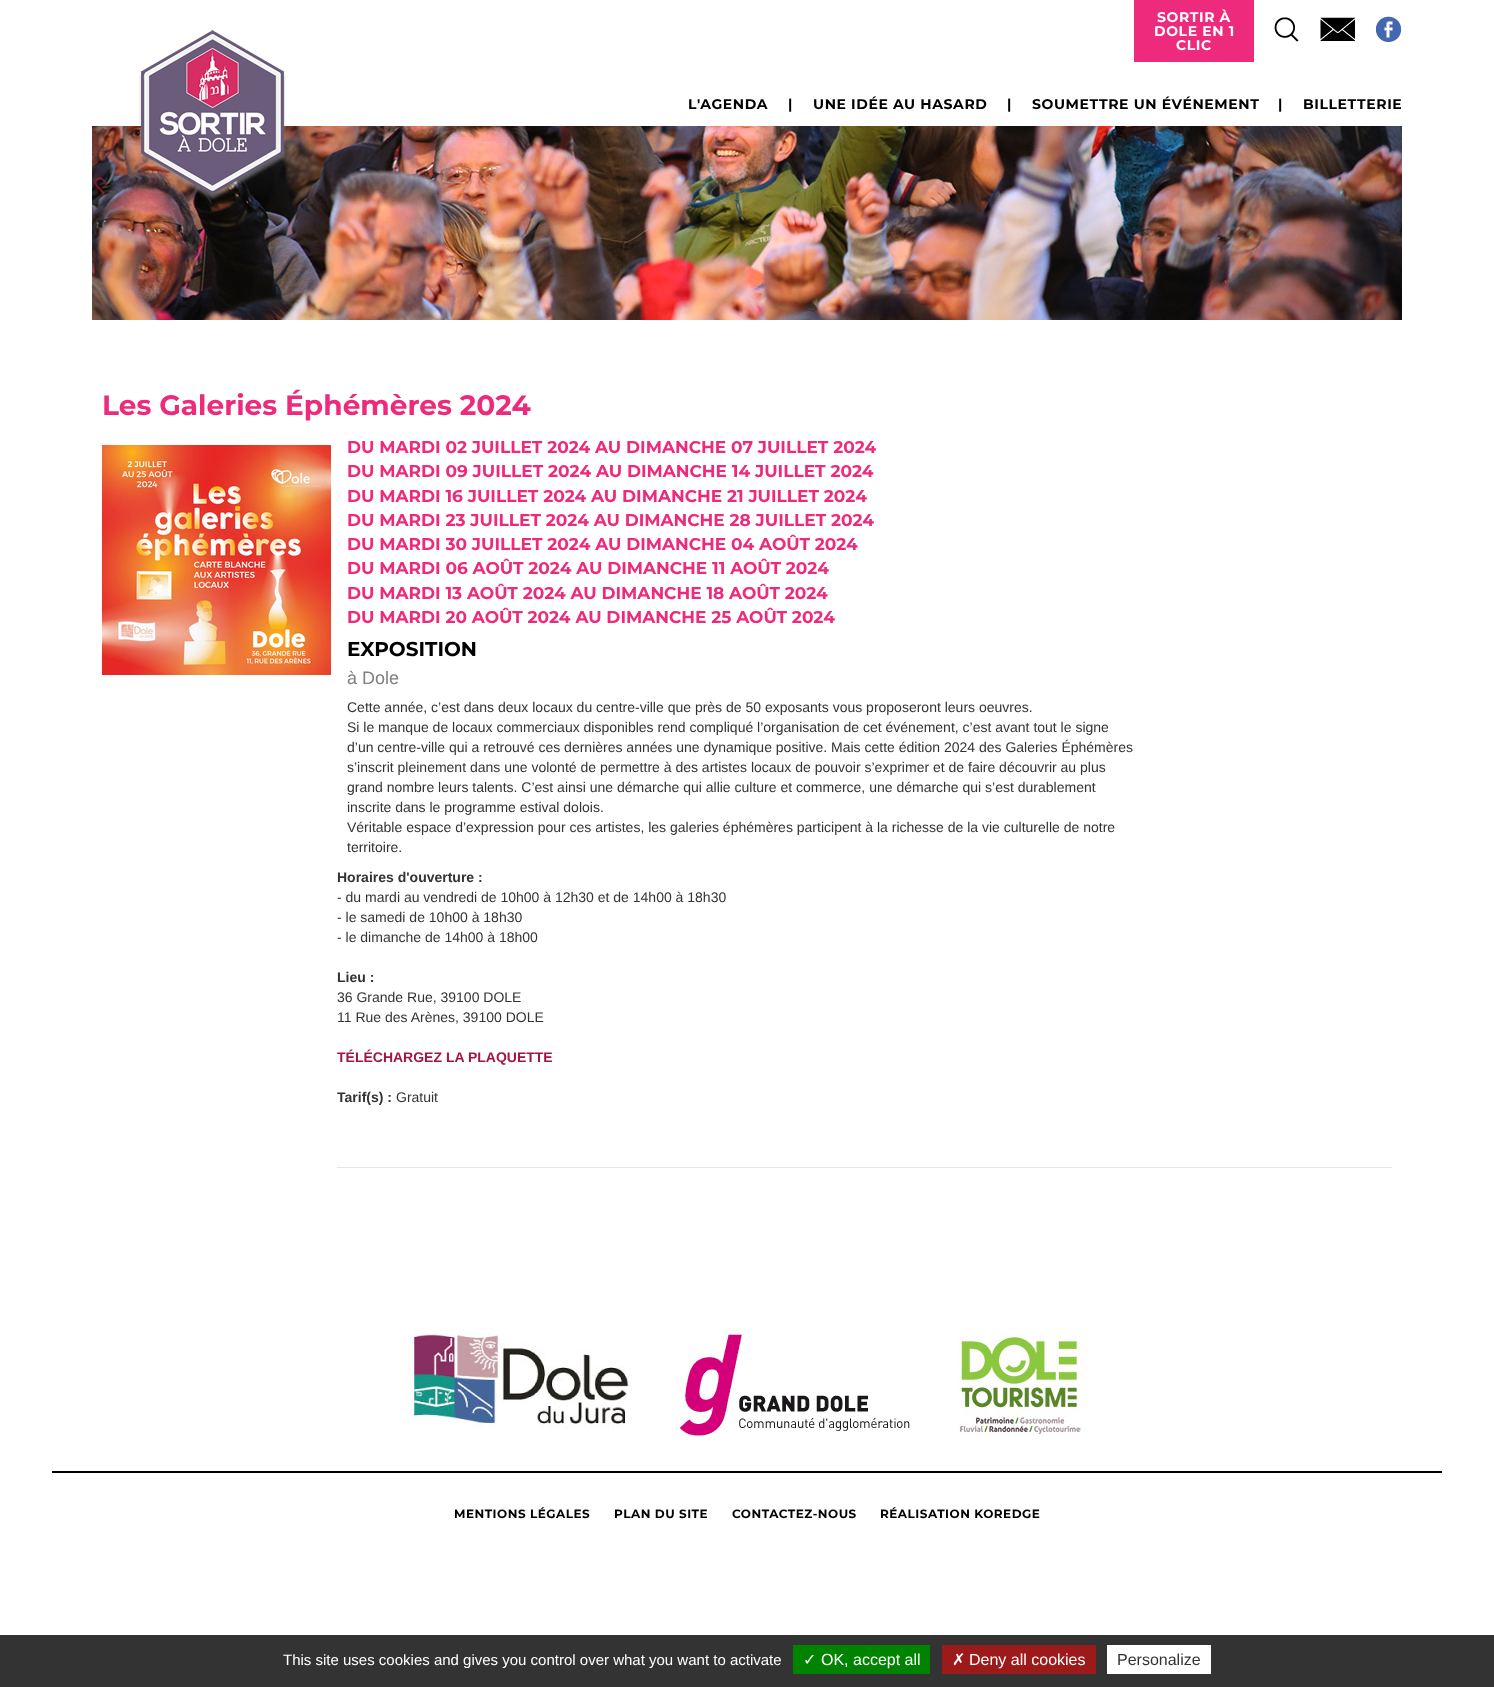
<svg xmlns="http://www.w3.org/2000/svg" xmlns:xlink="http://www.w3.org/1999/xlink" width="1494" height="1687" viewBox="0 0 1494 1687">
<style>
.cls-1{font:100 14px Montserrat;letter-spacing:0.6px;fill:#ffffff}
.cls-2{font:100 14px Montserrat;letter-spacing:0.6px;fill:#000000}
.cls-3{font:100 28px Montserrat;fill:#ed2a7b}
.cls-4{font:100 17px Montserrat;fill:#ed2a7b}
.cls-5{font:100 20px Montserrat;fill:#000000}
.cls-6{font:18px Liberation Sans;fill:#808080}
.cls-7{font:14px Liberation Sans;fill:#333333}
.cls-8{font:bold 14px Liberation Sans;fill:#333333}
.cls-9{font:bold 14px Liberation Sans;fill:#a11546}
.cls-10{font:100 12px Montserrat;letter-spacing:0.5px;fill:#000000}
.cls-11{font:15px Liberation Sans;fill:#ffffff}
.cls-12{font:16px DejaVu Sans;fill:#ffffff}
.cls-13{font:16px Liberation Sans;fill:#ffffff}
.cls-14{font:16px Liberation Sans;fill:#333333}
</style>
<rect width="100%" height="100%" fill="#ffffff"/>
<image xlink:href="image4.png" x="92" y="126" width="1310" height="194"/>
<image xlink:href="image0.png" x="138" y="30" width="148" height="170"/>
<rect fill="#ed2a7b" x="1134" y="0" width="120" height="62"/>
<image xlink:href="image1.png" x="1274" y="17" width="25" height="25"/>
<image xlink:href="image2.png" x="1320" y="17" width="35" height="24"/>
<image xlink:href="image3.png" x="1376" y="16" width="26" height="26"/>
<image xlink:href="image5.png" x="102" y="445" width="229" height="230"/>
<rect fill="#e6e6e6" x="337" y="1167" width="1055" height="1"/>
<image xlink:href="image6.png" x="410" y="1334" width="222" height="95"/>
<image xlink:href="image7.png" x="680" y="1334" width="230" height="102"/>
<image xlink:href="image8.png" x="956" y="1334" width="128" height="102"/>
<rect fill="#000000" x="52" y="1471" width="1390" height="2"/>
<rect fill="#333333" x="0" y="1635" width="1494" height="52"/>
<rect fill="#008300" x="793" y="1645" width="137" height="29"/>
<rect fill="#9c1a1a" x="942" y="1645" width="154" height="29"/>
<rect fill="#ffffff" x="1107" y="1645" width="104" height="29"/>
<text class="cls-1" x="1157" y="22">SORTIR À</text>
<text class="cls-1" x="1154" y="36">DOLE EN 1</text>
<text class="cls-1" x="1176" y="50">CLIC</text>
<text class="cls-2" x="688" y="109">L'AGENDA</text>
<text class="cls-2" x="788" y="109">|</text>
<text class="cls-2" x="813" y="109">UNE IDÉE AU HASARD</text>
<text class="cls-2" x="1007" y="109">|</text>
<text class="cls-2" x="1032" y="109">SOUMETTRE UN ÉVÉNEMENT</text>
<text class="cls-2" x="1278" y="109">|</text>
<text class="cls-2" x="1303" y="109">BILLETTERIE</text>
<text class="cls-3" x="102" y="415">Les Galeries Éphémères 2024</text>
<text class="cls-4"><tspan x="347" y="453">DU MARDI 02 JUILLET 2024 AU DIMANCHE 07 JUILLET 2024</tspan><tspan x="347" y="477">DU MARDI 09 JUILLET 2024 AU DIMANCHE 14 JUILLET 2024</tspan><tspan x="347" y="502">DU MARDI 16 JUILLET 2024 AU DIMANCHE 21 JUILLET 2024</tspan><tspan x="347" y="526">DU MARDI 23 JUILLET 2024 AU DIMANCHE 28 JUILLET 2024</tspan><tspan x="347" y="550">DU MARDI 30 JUILLET 2024 AU DIMANCHE 04 AOÛT 2024</tspan><tspan x="347" y="574">DU MARDI 06 AOÛT 2024 AU DIMANCHE 11 AOÛT 2024</tspan><tspan x="347" y="599">DU MARDI 13 AOÛT 2024 AU DIMANCHE 18 AOÛT 2024</tspan><tspan x="347" y="623">DU MARDI 20 AOÛT 2024 AU DIMANCHE 25 AOÛT 2024</tspan></text>
<text class="cls-5" x="347" y="656">EXPOSITION</text>
<text class="cls-6" x="347" y="684">à Dole</text>
<text class="cls-7"><tspan x="347" y="712">Cette année, c’est dans deux locaux du centre-ville que près de 50 exposants vous proposeront leurs oeuvres.</tspan><tspan x="347" y="732">Si le manque de locaux commerciaux disponibles rend compliqué l’organisation de cet événement, c’est avant tout le signe</tspan><tspan x="347" y="752">d’un centre-ville qui a retrouvé ces dernières années une dynamique positive. Mais cette édition 2024 des Galeries Éphémères</tspan><tspan x="347" y="772">s’inscrit pleinement dans une volonté de permettre à des artistes locaux de pouvoir s’exprimer et de faire découvrir au plus</tspan><tspan x="347" y="792">grand nombre leurs talents. C’est ainsi une démarche qui allie culture et commerce, une démarche qui s’est durablement</tspan><tspan x="347" y="812">inscrite dans le programme estival dolois.</tspan><tspan x="347" y="832">Véritable espace d’expression pour ces artistes, les galeries éphémères participent à la richesse de la vie culturelle de notre</tspan><tspan x="347" y="852">territoire.</tspan></text>
<text class="cls-8" x="337" y="882">Horaires d'ouverture :</text>
<text class="cls-7"><tspan x="337" y="902">- du mardi au vendredi de 10h00 à 12h30 et de 14h00 à 18h30</tspan><tspan x="337" y="922">- le samedi de 10h00 à 18h30</tspan><tspan x="337" y="942">- le dimanche de 14h00 à 18h00</tspan></text>
<text class="cls-8" x="337" y="982">Lieu :</text>
<text class="cls-7"><tspan x="337" y="1002">36 Grande Rue, 39100 DOLE</tspan><tspan x="337" y="1022">11 Rue des Arènes, 39100 DOLE</tspan></text>
<text class="cls-9" x="337" y="1062">TÉLÉCHARGEZ LA PLAQUETTE</text>
<text class="cls-8" x="337" y="1102">Tarif(s) :</text>
<text class="cls-7" x="396" y="1102">Gratuit</text>
<text class="cls-10" x="454" y="1518">MENTIONS LÉGALES</text>
<text class="cls-10" x="614" y="1518">PLAN DU SITE</text>
<text class="cls-10" x="732" y="1518">CONTACTEZ-NOUS</text>
<text class="cls-10" x="880" y="1518">RÉALISATION KOREDGE</text>
<text class="cls-11" x="283" y="1665">This site uses cookies and gives you control over what you want to activate</text>
<text class="cls-12" x="803" y="1665">✓</text>
<text class="cls-13" x="821" y="1665">OK, accept all</text>
<text class="cls-12" x="952" y="1665">✗</text>
<text class="cls-13" x="969" y="1665">Deny all cookies</text>
<text class="cls-14" x="1117" y="1665">Personalize</text>
</svg>
